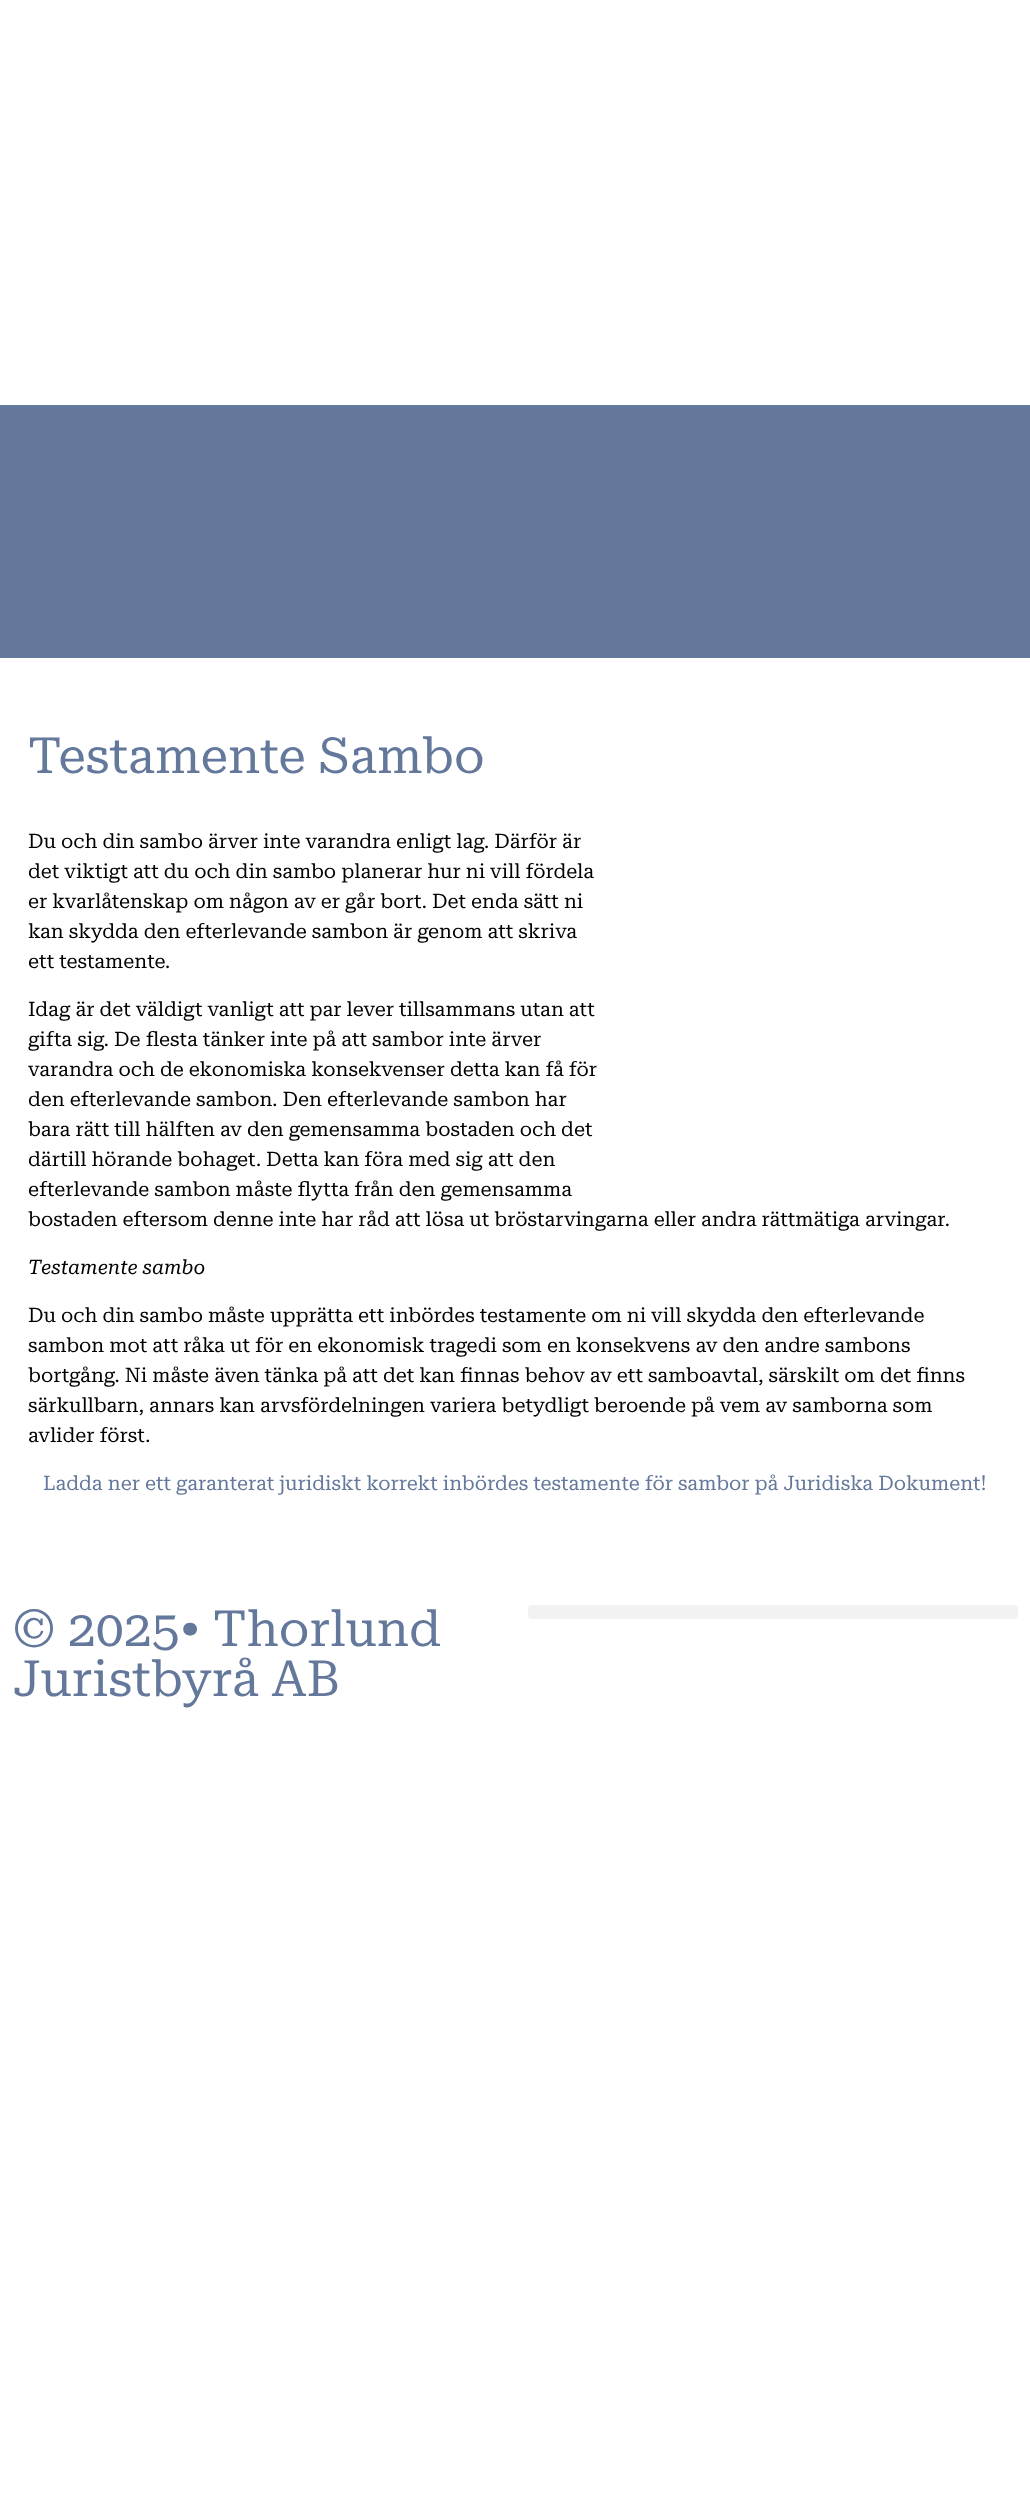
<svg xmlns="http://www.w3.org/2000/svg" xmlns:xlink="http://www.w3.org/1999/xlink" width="1030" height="2520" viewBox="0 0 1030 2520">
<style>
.cls-1{font:50px Roboto Serif;fill:#64789b}
.cls-2{font:20px Roboto Serif;fill:#000000}
.cls-3{font:italic 20px Roboto Serif;fill:#000000}
.cls-4{font:20px Roboto Serif;fill:#64789b}
</style>
<rect width="100%" height="100%" fill="#ffffff"/>
<rect fill="#64789b" x="0" y="405" width="1030" height="253"/>
<rect fill="#f2f2f2" x="528" y="1605" width="490" height="14" rx="4"/>
<text class="cls-1" x="28" y="773">Testamente Sambo</text>
<text class="cls-2"><tspan x="28" y="848">Du och din sambo ärver inte varandra enligt lag. Därför är</tspan><tspan x="28" y="878">det viktigt att du och din sambo planerar hur ni vill fördela</tspan><tspan x="28" y="908">er kvarlåtenskap om någon av er går bort. Det enda sätt ni</tspan><tspan x="28" y="938">kan skydda den efterlevande sambon är genom att skriva</tspan><tspan x="28" y="968">ett testamente.</tspan></text>
<text class="cls-2"><tspan x="28" y="1016">Idag är det väldigt vanligt att par lever tillsammans utan att</tspan><tspan x="28" y="1046">gifta sig. De flesta tänker inte på att sambor inte ärver</tspan><tspan x="28" y="1076">varandra och de ekonomiska konsekvenser detta kan få för</tspan><tspan x="28" y="1106">den efterlevande sambon. Den efterlevande sambon har</tspan><tspan x="28" y="1136">bara rätt till hälften av den gemensamma bostaden och det</tspan><tspan x="28" y="1166">därtill hörande bohaget. Detta kan föra med sig att den</tspan><tspan x="28" y="1196">efterlevande sambon måste flytta från den gemensamma</tspan><tspan x="28" y="1226">bostaden eftersom denne inte har råd att lösa ut bröstarvingarna eller andra rättmätiga arvingar.</tspan></text>
<text class="cls-3" x="28" y="1274">Testamente sambo</text>
<text class="cls-2"><tspan x="28" y="1322">Du och din sambo måste upprätta ett inbördes testamente om ni vill skydda den efterlevande</tspan><tspan x="28" y="1352">sambon mot att råka ut för en ekonomisk tragedi som en konsekvens av den andre sambons</tspan><tspan x="28" y="1382">bortgång. Ni måste även tänka på att det kan finnas behov av ett samboavtal, särskilt om det finns</tspan><tspan x="28" y="1412">särkullbarn, annars kan arvsfördelningen variera betydligt beroende på vem av samborna som</tspan><tspan x="28" y="1442">avlider först.</tspan></text>
<text class="cls-4" x="43" y="1490">Ladda ner ett garanterat juridiskt korrekt inbördes testamente för sambor på Juridiska Dokument!</text>
<text class="cls-1"><tspan x="13" y="1646">© 2025• Thorlund</tspan><tspan x="13" y="1696">Juristbyrå AB</tspan></text>
</svg>
